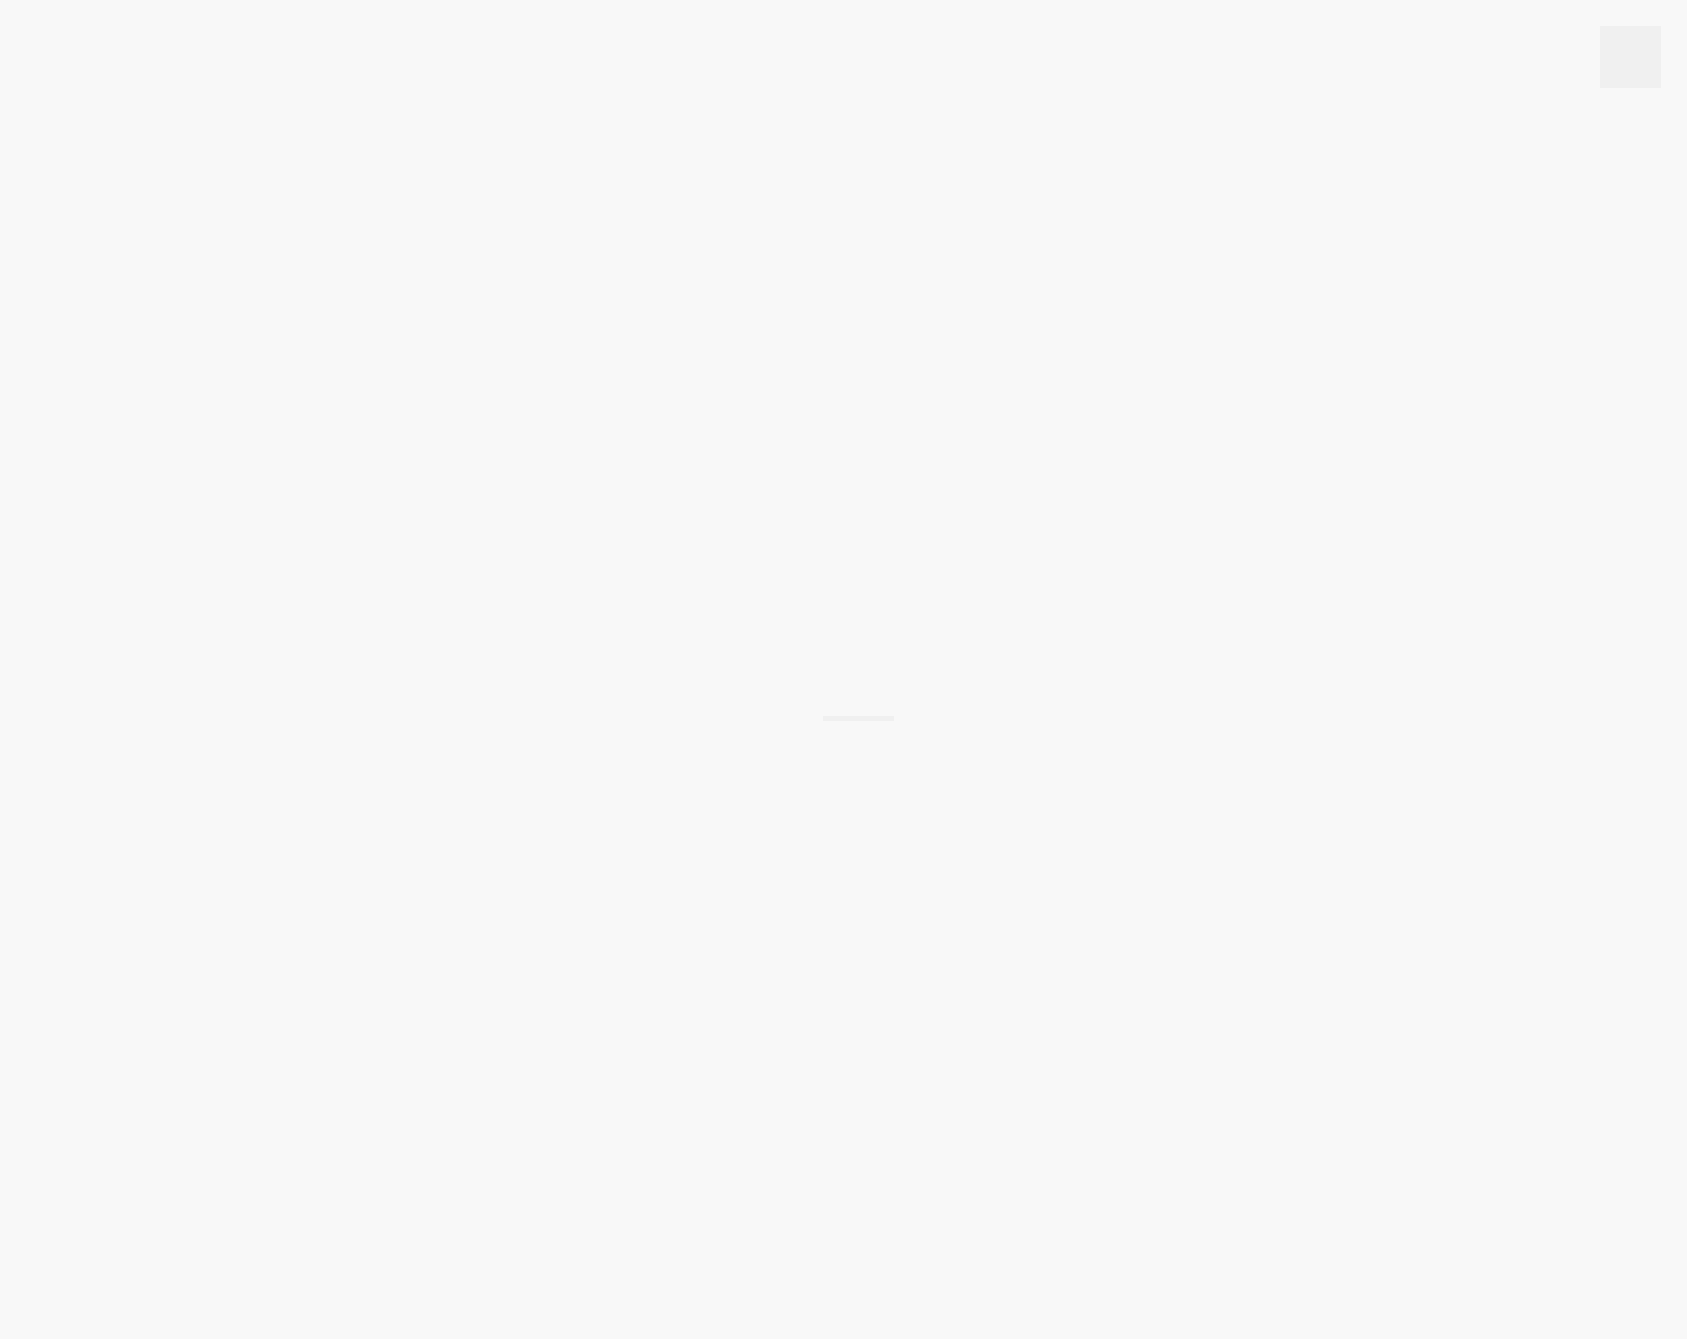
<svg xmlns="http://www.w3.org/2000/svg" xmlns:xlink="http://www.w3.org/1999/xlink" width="1687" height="1339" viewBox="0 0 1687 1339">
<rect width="100%" height="100%" fill="#f8f8f8"/>
<rect fill="#f0f0f0" x="1600" y="26" width="61" height="62"/>
<rect fill="#f0f0f0" x="823" y="716" width="71" height="5"/>
</svg>
